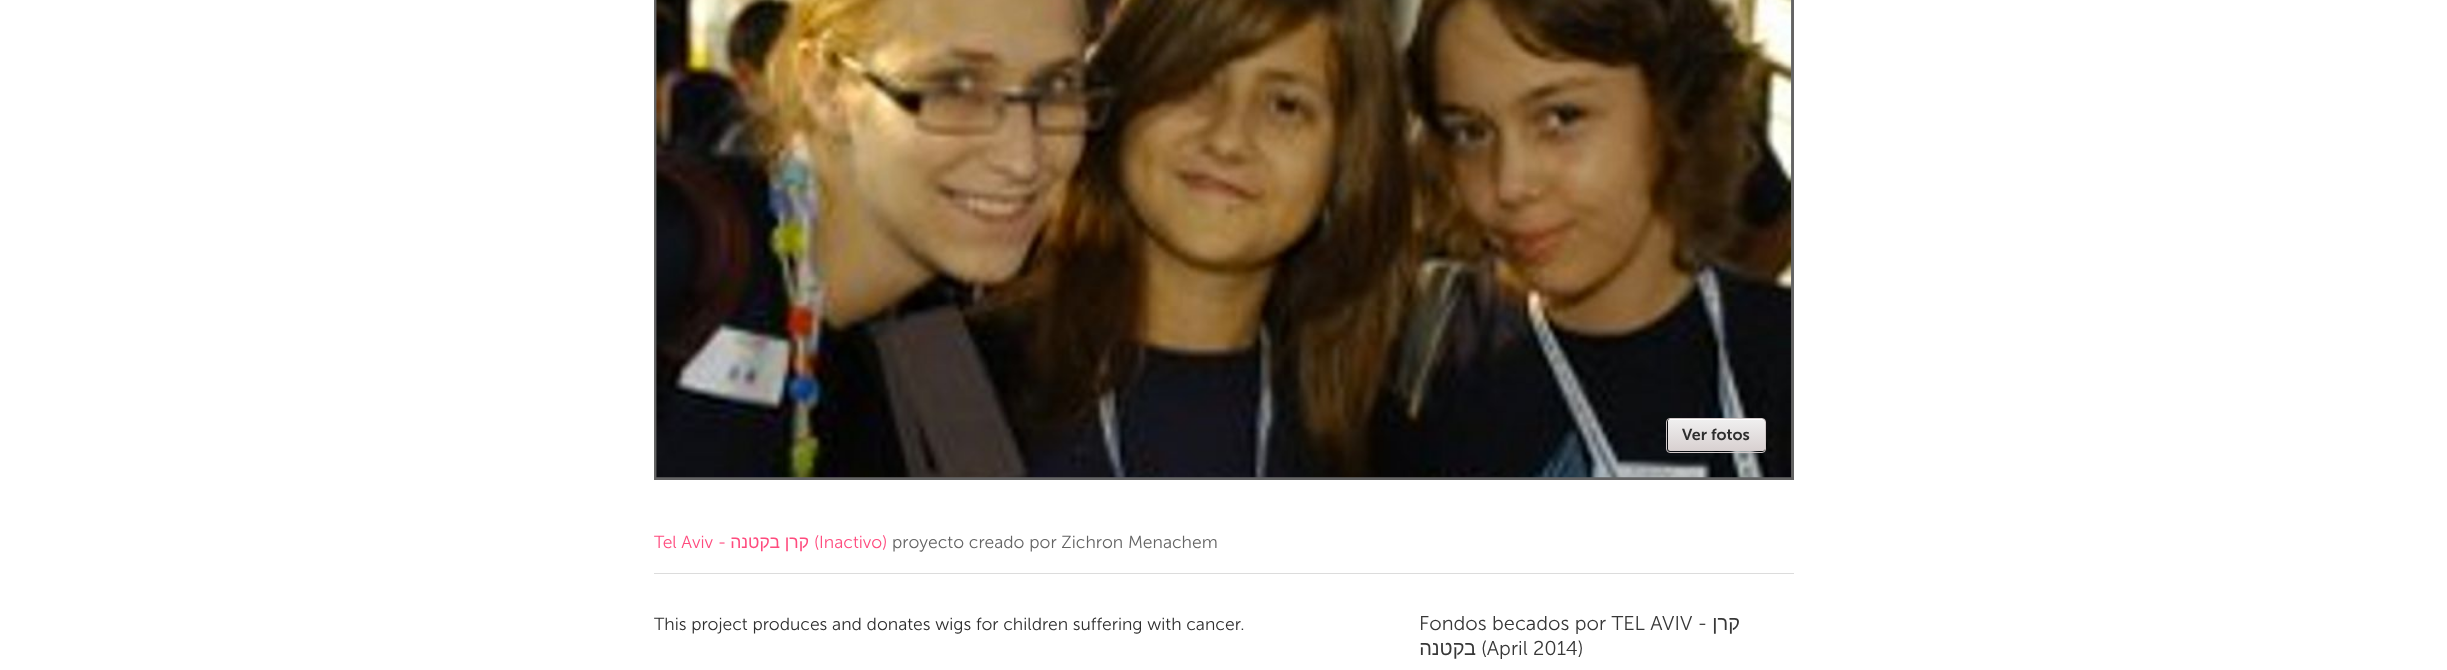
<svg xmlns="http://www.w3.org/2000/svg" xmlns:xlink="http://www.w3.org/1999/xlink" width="2447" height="670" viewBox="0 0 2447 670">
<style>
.cls-1{font:600 16px 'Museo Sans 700';fill:#2e2e2e}
.cls-2{font:300 17.5px 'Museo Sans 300';fill:#ff4b7e}
.cls-3{font:17.5px Liberation Sans;direction:rtl;fill:#ff4b7e}
.cls-4{font:300 17.5px 'Museo Sans 300';fill:#646464}
.cls-5{font:300 17.5px 'Museo Sans 300';fill:#2e2e2e}
.cls-6{font:300 20px 'Museo Sans 300';fill:#373737}
.cls-7{font:20px Liberation Sans;direction:rtl;fill:#373737}
</style>
<defs>
<linearGradient id="g1" gradientUnits="userSpaceOnUse" x1="1716" y1="419" x2="1716" y2="451"><stop offset="0" stop-color="#f0f0f0"/><stop offset="1" stop-color="#d8d0d0"/></linearGradient>
</defs>
<rect width="100%" height="100%" fill="#ffffff"/>
<rect fill="#646464" x="654" y="0" width="1140" height="480"/>
<image xlink:href="image0.png" x="656" y="0" width="1136" height="478"/>
<rect fill="url(#g1)" x="1668" y="419" width="97" height="32" rx="2.5"/>
<path fill="#ffffff" d="M1670 420H1762C1764 420 1765 421 1765 422C1765 421 1765 420 1763 419H1686C1680 419 1668 416 1668 422C1668 421 1669 420 1670 420Z"/>
<rect fill="none" stroke="#d1c8c8" x="1666.5" y="418.5" width="99" height="34" rx="3.5"/>
<rect fill="#dcdcdc" x="654" y="573" width="1140" height="1"/>
<text class="cls-1" x="1682" y="440">Ver fotos</text>
<text class="cls-2" x="654" y="548">Tel Aviv -</text>
<text class="cls-3" x="809" y="548">קרן בקטנה</text>
<text class="cls-2" x="814" y="548">(Inactivo)</text>
<text class="cls-4" x="892" y="548">proyecto creado por Zichron Menachem</text>
<text class="cls-5" x="654" y="630">This project produces and donates wigs for children suffering with cancer.</text>
<text class="cls-6" x="1419" y="630">Fondos becados por TEL AVIV -</text>
<text class="cls-7" x="1740" y="630">קרן</text>
<text class="cls-7" x="1476" y="655">בקטנה</text>
<text class="cls-6" x="1481" y="655">(April 2014)</text>
</svg>
